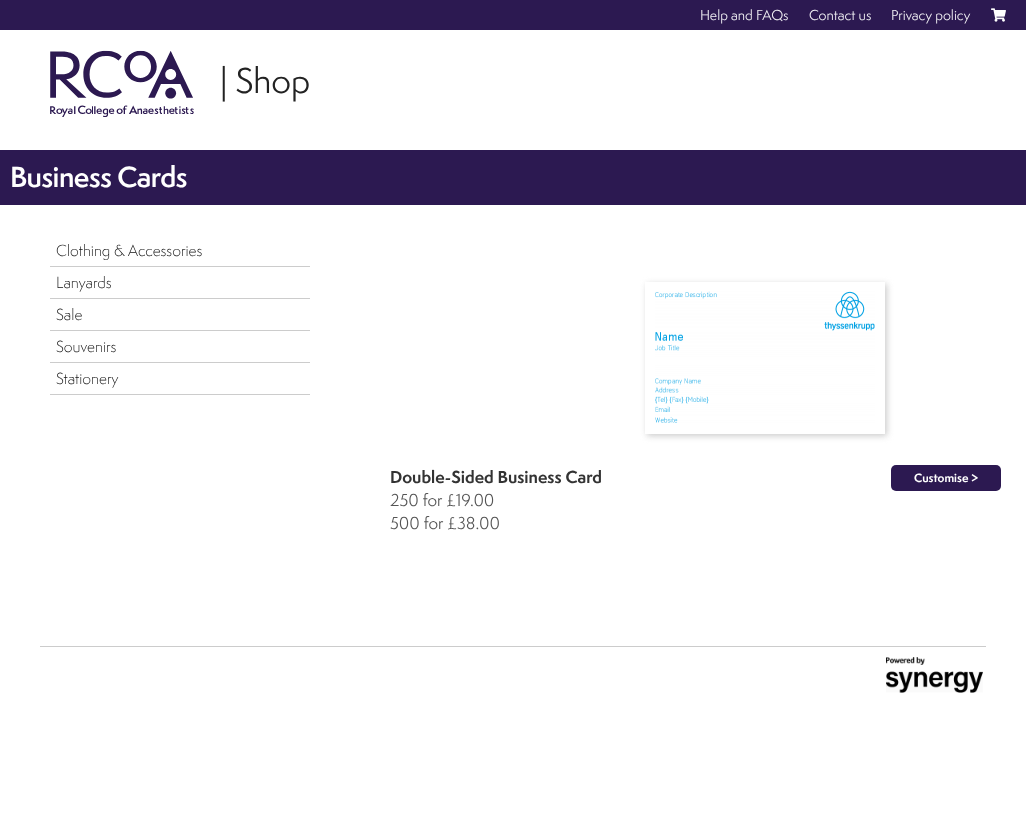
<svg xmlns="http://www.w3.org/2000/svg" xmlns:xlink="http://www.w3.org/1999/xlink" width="1026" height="820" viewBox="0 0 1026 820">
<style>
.cls-1{font:13.25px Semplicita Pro;fill:#f2f1f5}
.cls-2{font:33px Semplicita Pro;fill:#222222}
.cls-3{font:600 26.75px Semplicita Pro;letter-spacing:-0.5px;fill:#ffffff}
.cls-4{font:300 14.75px Semplicita Pro;fill:#111111}
.cls-5{font:bold 16px Semplicita Pro;fill:#333333}
.cls-6{font:16px Semplicita Pro;fill:#555555}
.cls-7{font:bold 11px Semplicita Pro;fill:#ffffff}
</style>
<defs>
<clipPath id="clip1"><path d="M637 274H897V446H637ZM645 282H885V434H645Z" clip-rule="evenodd"/></clipPath>
</defs>
<rect width="100%" height="100%" fill="#ffffff"/>
<rect fill="#2c1951" x="0" y="0" width="1026" height="30"/>
<image xlink:href="image0.png" x="991" y="8" width="15" height="14"/>
<image xlink:href="image1.png" x="50" y="50" width="144" height="67"/>
<rect fill="#2c1951" x="0" y="150" width="1026" height="55"/>
<rect fill="#cccccc" x="50" y="266" width="260" height="1"/>
<rect fill="#cccccc" x="50" y="298" width="260" height="1"/>
<rect fill="#cccccc" x="50" y="330" width="260" height="1"/>
<rect fill="#cccccc" x="50" y="362" width="260" height="1"/>
<rect fill="#cccccc" x="50" y="394" width="260" height="1"/>
<g clip-path="url(#clip1)">
<rect fill="#cccccc" filter="blur(3px)" x="647" y="284" width="240" height="152"/>
</g>
<image xlink:href="image2.png" x="655" y="291" width="220" height="132"/>
<rect fill="#2c1951" x="891" y="465" width="110" height="26" rx="5"/>
<rect fill="#cccccc" x="40" y="646" width="946" height="1"/>
<image xlink:href="image3.png" x="886" y="657" width="97" height="36"/>
<text class="cls-1" x="700" y="20">Help and FAQs</text>
<text class="cls-1" x="809" y="20">Contact us</text>
<text class="cls-1" x="891" y="20">Privacy policy</text>
<text class="cls-2" x="220" y="93">| Shop</text>
<text class="cls-3" x="10" y="187">Business Cards</text>
<text class="cls-4" x="56" y="256">Clothing &amp; Accessories</text>
<text class="cls-4" x="56" y="288">Lanyards</text>
<text class="cls-4" x="56" y="320">Sale</text>
<text class="cls-4" x="56" y="352">Souvenirs</text>
<text class="cls-4" x="56" y="384">Stationery</text>
<text class="cls-5" x="390" y="483">Double-Sided Business Card</text>
<text class="cls-6"><tspan x="390" y="506">250 for £19.00</tspan><tspan x="390" y="529">500 for £38.00</tspan></text>
<text class="cls-7" x="914" y="482">Customise &gt;</text>
</svg>
